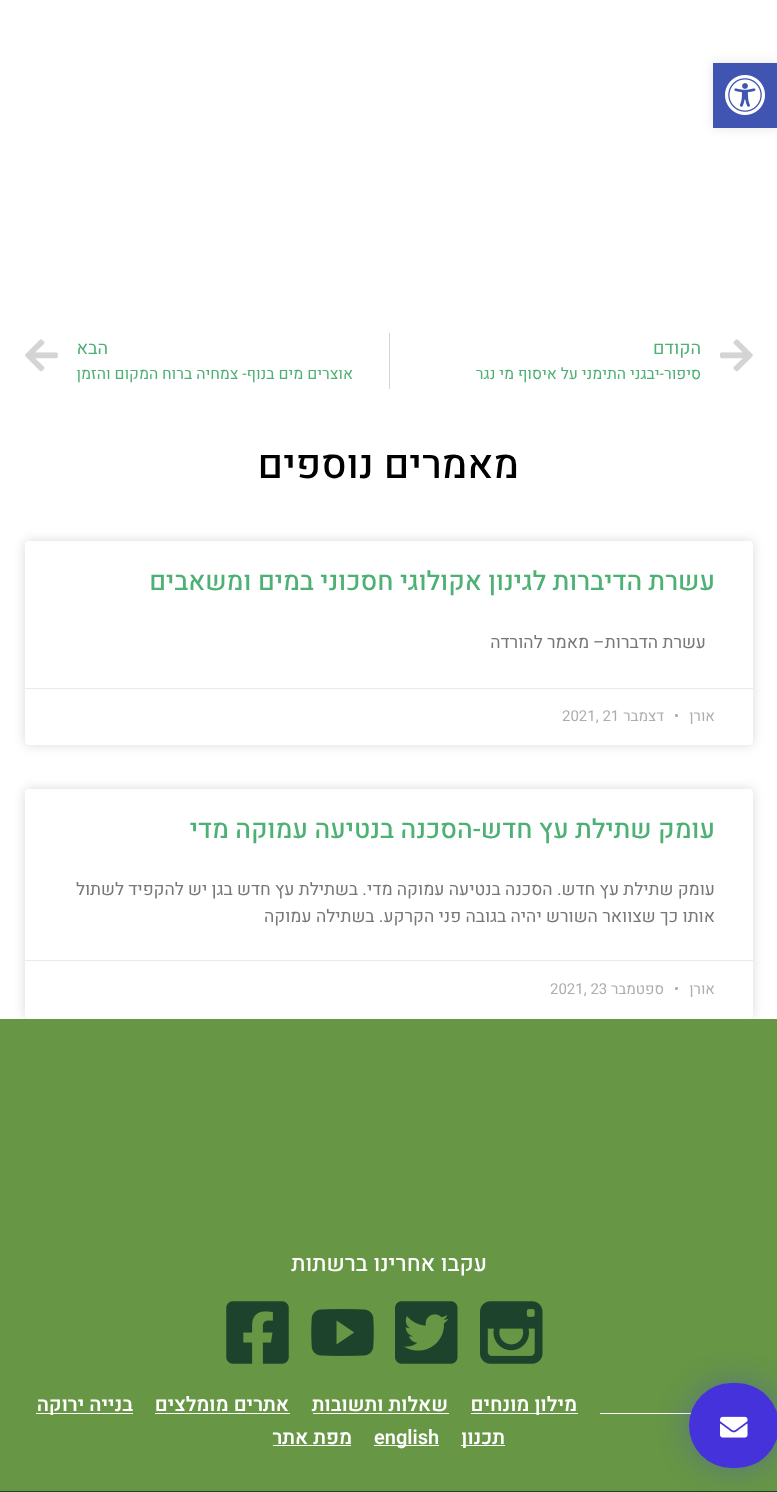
<svg xmlns="http://www.w3.org/2000/svg" xmlns:xlink="http://www.w3.org/1999/xlink" width="777" height="1492" viewBox="0 0 777 1492">
<style>
.cls-1{font:18px Heebo;direction:rtl;fill:#4db074}
.cls-2{font:15.75px Heebo;direction:rtl;fill:#4db074}
.cls-3{font:500 40px Heebo;direction:rtl;fill:#000000}
.cls-4{font:500 26.25px Heebo;direction:rtl;fill:#4db074}
.cls-5{font:17.5px Heebo;direction:rtl;fill:#777777}
.cls-6{font:15px Heebo;direction:rtl;fill:#adadad}
.cls-7{font:15px Heebo;fill:#adadad}
.cls-8{font:500 22.5px Heebo;direction:rtl;fill:#ffffff}
.cls-9{font:600 20px Heebo;direction:rtl;fill:#ffffff}
.cls-10{font:600 20px Heebo;fill:#ffffff}
</style>
<rect width="100%" height="100%" fill="#ffffff"/>
<rect fill="#000000" fill-opacity="0.1" filter="blur(6px)" x="713" y="63" width="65" height="65"/>
<rect fill="#4054b2" x="713" y="63" width="64" height="65"/>
<image xlink:href="image0.png" x="725" y="75" width="40" height="40"/>
<image xlink:href="image1.png" x="720" y="339" width="33" height="33"/>
<rect fill="#d4d4d4" x="389" y="333" width="1" height="56"/>
<image xlink:href="image2.png" x="25" y="339" width="33" height="33"/>
<rect fill="#000000" fill-opacity="0.15" filter="blur(6px)" x="25" y="541" width="728" height="204" rx="4"/>
<rect fill="#ffffff" x="25" y="541" width="728" height="204" rx="4"/>
<rect fill="#eaeaea" x="25" y="688" width="728" height="1"/>
<rect fill="#000000" fill-opacity="0.15" filter="blur(6px)" x="25" y="789" width="728" height="230" rx="4"/>
<rect fill="#ffffff" x="25" y="789" width="728" height="230" rx="4"/>
<rect fill="#eaeaea" x="25" y="960" width="728" height="1"/>
<rect fill="#679645" x="0" y="1019" width="777" height="472"/>
<rect fill="#ffffff" x="600" y="1413" width="91" height="1"/>
<rect fill="#1d432c" x="0" y="1491" width="777" height="1"/>
<rect fill="#3538f0" fill-opacity="0.35" filter="blur(15.5px)" x="689" y="1383" width="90" height="85" rx="42.5"/>
<rect fill="#4632da" x="689" y="1383" width="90" height="85" rx="42.5"/>
<image xlink:href="image3.png" x="720" y="1416" width="28" height="22"/>
<image xlink:href="image4.png" x="480" y="1301" width="63" height="63"/>
<image xlink:href="image5.png" x="395" y="1301" width="63" height="63"/>
<image xlink:href="image6.png" x="311" y="1309" width="63" height="47"/>
<image xlink:href="image7.png" x="226" y="1301" width="63" height="63"/>
<rect fill="#ffffff" x="471" y="1413" width="107" height="1"/>
<rect fill="#ffffff" x="313" y="1413" width="136" height="1"/>
<rect fill="#ffffff" x="155" y="1413" width="135" height="1"/>
<rect fill="#ffffff" x="36" y="1413" width="97" height="1"/>
<rect fill="#ffffff" x="461" y="1445" width="44" height="1"/>
<rect fill="#ffffff" x="374" y="1445" width="65" height="1"/>
<rect fill="#ffffff" x="273" y="1445" width="78" height="1"/>
<text class="cls-1" x="701" y="354">הקודם</text>
<text class="cls-2" x="701" y="379">סיפור-יבגני התימני על איסוף מי נגר</text>
<text class="cls-1" x="108" y="354">הבא</text>
<text class="cls-2" x="353" y="379">אוצרים מים בנוף- צמחיה ברוח המקום והזמן</text>
<text class="cls-3" x="519" y="478">מאמרים נוספים</text>
<text class="cls-4" x="715" y="590">עשרת הדיברות לגינון אקולוגי חסכוני במים ומשאבים</text>
<text class="cls-5" x="706" y="648">עשרת הדברות– מאמר להורדה</text>
<text class="cls-6" x="715" y="721">אורן</text>
<text class="cls-7" x="674" y="721">•</text>
<text class="cls-6" x="664" y="721">דצמבר</text>
<text class="cls-7" x="562" y="721">2021, 21</text>
<text class="cls-4" x="715" y="838">עומק שתילת עץ חדש-הסכנה בנטיעה עמוקה מדי</text>
<text class="cls-5"><tspan x="715" y="895">עומק שתילת עץ חדש. הסכנה בנטיעה עמוקה מדי. בשתילת עץ חדש בגן יש להקפיד לשתול</tspan><tspan x="715" y="922">אותו כך שצוואר השורש יהיה בגובה פני הקרקע. בשתילה עמוקה</tspan></text>
<text class="cls-6" x="715" y="994">אורן</text>
<text class="cls-7" x="674" y="994">•</text>
<text class="cls-6" x="664" y="994">ספטמבר</text>
<text class="cls-7" x="550" y="994">2021, 23</text>
<text class="cls-8" x="487" y="1271">עקבו אחרינו ברשתות</text>
<text class="cls-9" x="577" y="1411">מילון מונחים</text>
<text class="cls-9" x="448" y="1411">שאלות ותשובות</text>
<text class="cls-9" x="289" y="1411">אתרים מומלצים</text>
<text class="cls-9" x="133" y="1411">בנייה ירוקה</text>
<text class="cls-9" x="505" y="1444">תכנון</text>
<text class="cls-10" x="374" y="1444">english</text>
<text class="cls-9" x="352" y="1444">מפת אתר</text>
</svg>
